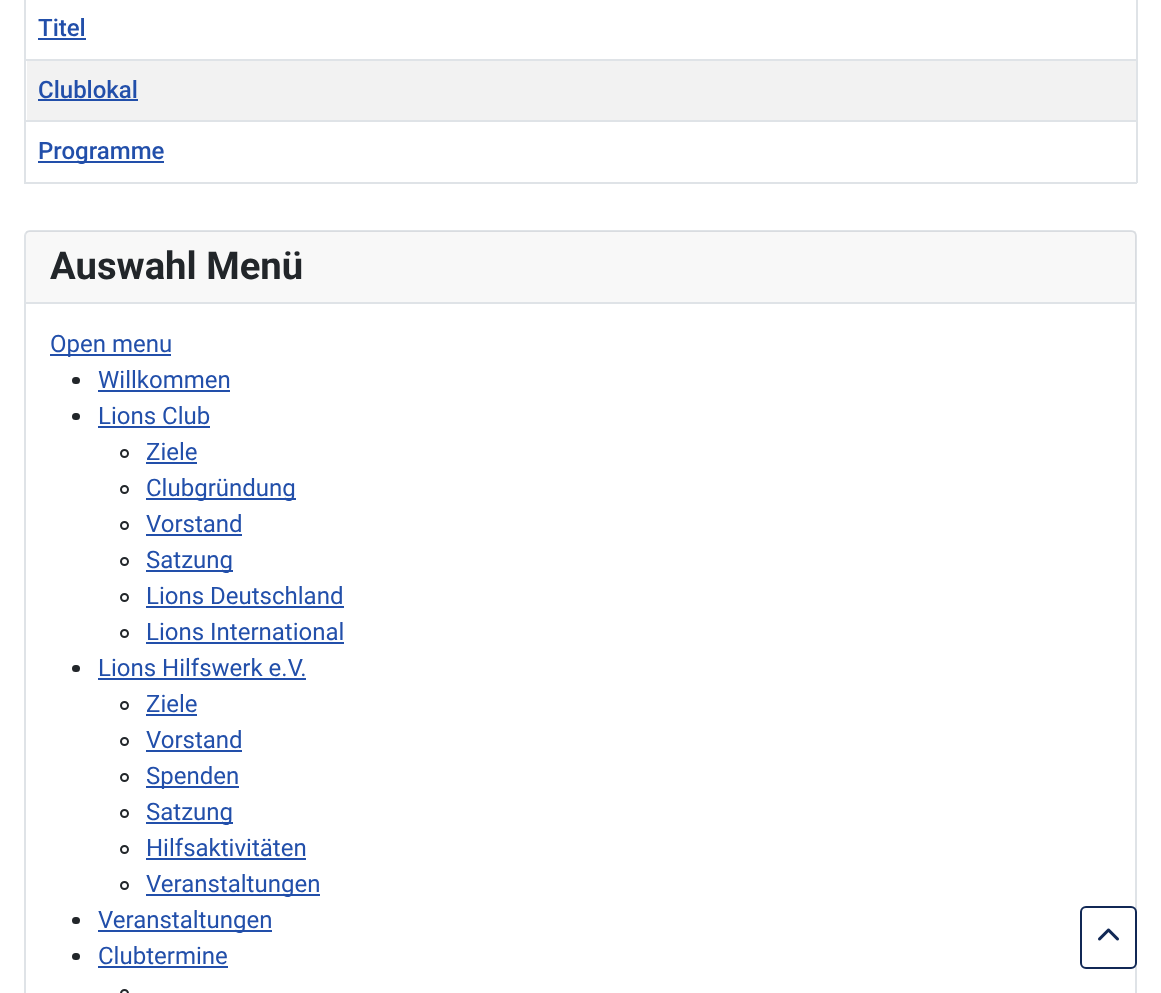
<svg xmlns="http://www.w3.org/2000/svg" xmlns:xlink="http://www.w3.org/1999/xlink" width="1161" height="993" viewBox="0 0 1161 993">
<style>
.cls-1{font:500 24px Roboto;fill:#224faa}
.cls-2{font:bold 38.25px Roboto;fill:#22262a}
.cls-3{font:24px Roboto;fill:#224faa}
</style>
<rect width="100%" height="100%" fill="#ffffff"/>
<rect fill="#224faa" x="38" y="38" width="48" height="2"/>
<rect fill="#dfe3e7" x="24" y="59" width="1113" height="2"/>
<rect fill="#f2f2f2" x="27" y="61" width="1109" height="59"/>
<rect fill="#224faa" x="38" y="99" width="100" height="2"/>
<rect fill="#dfe3e7" x="24" y="120" width="1113" height="2"/>
<rect fill="#dfe3e7" x="24" y="182" width="1113" height="2"/>
<rect fill="#dfe3e7" x="1136" y="0" width="2" height="183"/>
<rect fill="#dfe3e7" x="24" y="0" width="2" height="183"/>
<rect fill="#224faa" x="38" y="161" width="126" height="2"/>
<rect fill="none" stroke="#dfe3e7" stroke-width="2" x="25" y="231" width="1111" height="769" rx="5"/>
<rect fill="#22262a" fill-opacity="0.03" x="26" y="231" width="1110" height="71"/>
<rect fill="#dfe3e7" x="26" y="302" width="1110" height="2"/>
<rect fill="#224faa" x="50" y="354" width="121" height="2"/>
<rect fill="#22262a" x="72" y="377" width="8" height="7" rx="3.5"/>
<rect fill="#224faa" x="98" y="390" width="132" height="2"/>
<rect fill="#22262a" x="72" y="413" width="8" height="7" rx="3.5"/>
<rect fill="#224faa" x="98" y="426" width="112" height="2"/>
<circle fill="none" stroke="#22262a" stroke-width="2" cx="124.5" cy="453.5" r="3.5"/>
<rect fill="#224faa" x="146" y="462" width="51" height="2"/>
<circle fill="none" stroke="#22262a" stroke-width="2" cx="124.5" cy="489.5" r="3.5"/>
<rect fill="#224faa" x="146" y="498" width="150" height="2"/>
<circle fill="none" stroke="#22262a" stroke-width="2" cx="124.5" cy="525.5" r="3.5"/>
<rect fill="#224faa" x="146" y="534" width="96" height="2"/>
<circle fill="none" stroke="#22262a" stroke-width="2" cx="124.5" cy="561.5" r="3.5"/>
<rect fill="#224faa" x="146" y="570" width="87" height="2"/>
<circle fill="none" stroke="#22262a" stroke-width="2" cx="124.5" cy="597.5" r="3.5"/>
<rect fill="#224faa" x="146" y="606" width="198" height="2"/>
<circle fill="none" stroke="#22262a" stroke-width="2" cx="124.5" cy="633.5" r="3.5"/>
<rect fill="#224faa" x="146" y="642" width="198" height="2"/>
<rect fill="#22262a" x="72" y="665" width="8" height="7" rx="3.5"/>
<rect fill="#224faa" x="98" y="678" width="208" height="2"/>
<circle fill="none" stroke="#22262a" stroke-width="2" cx="124.5" cy="705.5" r="3.5"/>
<rect fill="#224faa" x="146" y="714" width="51" height="2"/>
<circle fill="none" stroke="#22262a" stroke-width="2" cx="124.5" cy="741.5" r="3.5"/>
<rect fill="#224faa" x="146" y="750" width="96" height="2"/>
<circle fill="none" stroke="#22262a" stroke-width="2" cx="124.5" cy="777.5" r="3.5"/>
<rect fill="#224faa" x="146" y="786" width="93" height="2"/>
<circle fill="none" stroke="#22262a" stroke-width="2" cx="124.5" cy="813.5" r="3.5"/>
<rect fill="#224faa" x="146" y="822" width="87" height="2"/>
<circle fill="none" stroke="#22262a" stroke-width="2" cx="124.5" cy="849.5" r="3.5"/>
<rect fill="#224faa" x="146" y="858" width="160" height="2"/>
<circle fill="none" stroke="#22262a" stroke-width="2" cx="124.5" cy="885.5" r="3.5"/>
<rect fill="#224faa" x="146" y="894" width="174" height="2"/>
<rect fill="#22262a" x="72" y="917" width="8" height="7" rx="3.5"/>
<rect fill="#224faa" x="98" y="930" width="174" height="2"/>
<rect fill="#22262a" x="72" y="953" width="8" height="7" rx="3.5"/>
<rect fill="#224faa" x="98" y="966" width="130" height="2"/>
<circle fill="none" stroke="#22262a" stroke-width="2" cx="124.5" cy="993.5" r="3.5"/>
<rect fill="#ffffff" stroke="#112855" stroke-width="2" x="1081" y="907" width="55" height="61" rx="5"/>
<image xlink:href="image0.png" x="1098" y="928" width="21" height="13"/>
<text class="cls-1" x="38" y="36">Titel</text>
<text class="cls-1" x="38" y="98">Clublokal</text>
<text class="cls-1" x="38" y="159">Programme</text>
<text class="cls-2" x="50" y="279">Auswahl Menü</text>
<text class="cls-3" x="50" y="352">Open menu</text>
<text class="cls-3"><tspan x="98" y="388">Willkommen</tspan><tspan x="98" y="424">Lions Club</tspan></text>
<text class="cls-3"><tspan x="146" y="460">Ziele</tspan><tspan x="146" y="496">Clubgründung</tspan><tspan x="146" y="532">Vorstand</tspan><tspan x="146" y="568">Satzung</tspan><tspan x="146" y="604">Lions Deutschland</tspan><tspan x="146" y="640">Lions International</tspan></text>
<text class="cls-3" x="98" y="676">Lions Hilfswerk e.V.</text>
<text class="cls-3"><tspan x="146" y="712">Ziele</tspan><tspan x="146" y="748">Vorstand</tspan><tspan x="146" y="784">Spenden</tspan><tspan x="146" y="820">Satzung</tspan><tspan x="146" y="856">Hilfsaktivitäten</tspan><tspan x="146" y="892">Veranstaltungen</tspan></text>
<text class="cls-3"><tspan x="98" y="928">Veranstaltungen</tspan><tspan x="98" y="964">Clubtermine</tspan></text>
</svg>
